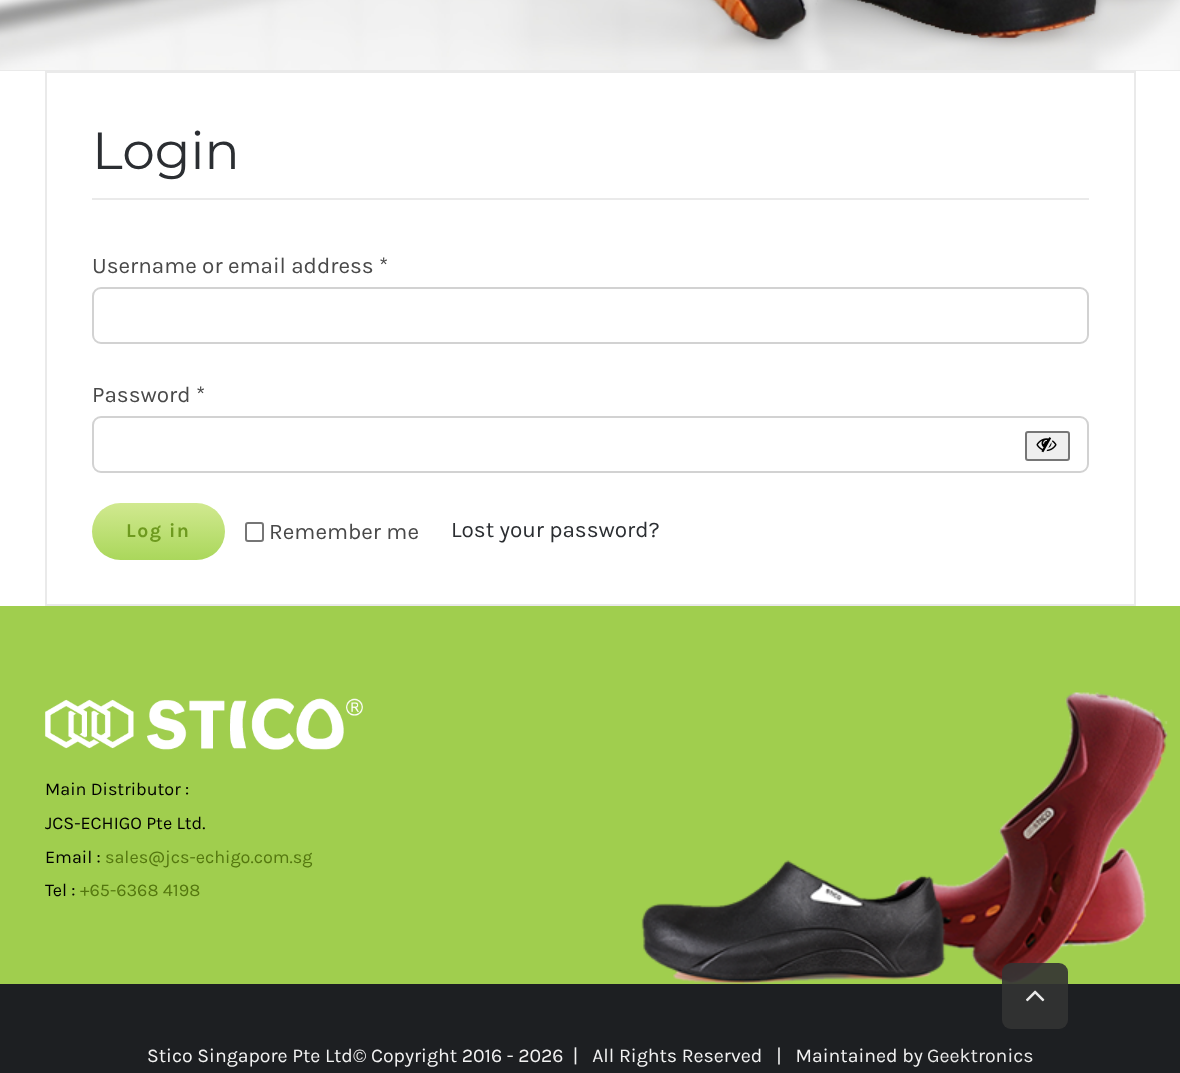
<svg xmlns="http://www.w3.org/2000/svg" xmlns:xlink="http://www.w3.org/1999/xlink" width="1180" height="1073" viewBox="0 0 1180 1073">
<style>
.cls-1{font:52px Montserrat;fill:#2b2e32}
.cls-2{font:22.5px Karla;fill:#494949}
.cls-3{font:bold 19.5px Karla;letter-spacing:1.5px;fill:#6e9a1f}
.cls-4{font:22.5px Karla;fill:#2b2e32}
.cls-5{font:18px Karla;fill:#000000}
.cls-6{font:18px Karla;fill:#54770f}
.cls-7{font:19.5px Karla;fill:#f2f2f2}
.cls-8{font:19.5px Karla;fill:#eaeaea}
</style>
<defs>
<linearGradient id="g1" gradientUnits="userSpaceOnUse" x1="158" y1="503" x2="158" y2="560"><stop offset="0" stop-color="#d1e990"/><stop offset="1" stop-color="#aad75b"/></linearGradient>
</defs>
<rect width="100%" height="100%" fill="#eaeaea"/>
<image xlink:href="image0.png" x="0" y="0" width="1180" height="70"/>
<rect fill="#ffffff" x="0" y="71" width="1180" height="535"/>
<rect fill="none" stroke="#eaeaea" stroke-width="2" x="46" y="72" width="1089" height="533"/>
<rect fill="#eaeaea" x="92" y="198" width="997" height="2"/>
<rect fill="none" stroke="#d2d2d2" stroke-width="2" x="93" y="288" width="995" height="55" rx="8"/>
<rect fill="none" stroke="#d2d2d2" stroke-width="2" x="93" y="417" width="995" height="55" rx="8"/>
<rect fill="#efefef" stroke="#767676" stroke-width="2" x="1026" y="432" width="43" height="28" rx="2"/>
<image xlink:href="image1.png" x="1036" y="437" width="21" height="16"/>
<rect fill="url(#g1)" x="92" y="503" width="133" height="57" rx="28.5"/>
<rect fill="none" stroke="#767676" stroke-width="2" x="246" y="523" width="17" height="18" rx="2"/>
<rect fill="#a0ce4e" x="0" y="606" width="1180" height="378"/>
<image xlink:href="image2.png" x="641" y="692" width="527" height="292"/>
<image xlink:href="image3.png" x="45" y="698" width="318" height="52"/>
<rect fill="#1d1f22" x="0" y="984" width="1180" height="89"/>
<rect fill="#333333" fill-opacity="0.9" x="1002" y="963" width="66" height="66" rx="9"/>
<image xlink:href="image4.png" x="1026" y="990" width="19" height="12"/>
<text class="cls-1" x="92" y="169">Login</text>
<text class="cls-2" x="92" y="273">Username or email address *</text>
<text class="cls-2" x="92" y="402">Password *</text>
<text class="cls-3" x="126" y="537">Log in</text>
<text class="cls-2" x="269" y="539">Remember me</text>
<text class="cls-4" x="451" y="537">Lost your password?</text>
<text class="cls-5"><tspan x="45" y="795">Main Distributor :</tspan><tspan x="45" y="829">JCS-ECHIGO Pte Ltd.</tspan><tspan x="45" y="863">Email :</tspan></text>
<text class="cls-6" x="105" y="863">sales@jcs-echigo.com.sg</text>
<text class="cls-5" x="45" y="896">Tel :</text>
<text class="cls-6" x="80" y="896">+65-6368 4198</text>
<text class="cls-7" xml:space="preserve" x="147" y="1062">Stico Singapore Pte Ltd© Copyright 2016 - 2026  |   All Rights Reserved   |   Maintained by</text>
<text class="cls-8" x="927" y="1062">Geektronics</text>
</svg>
